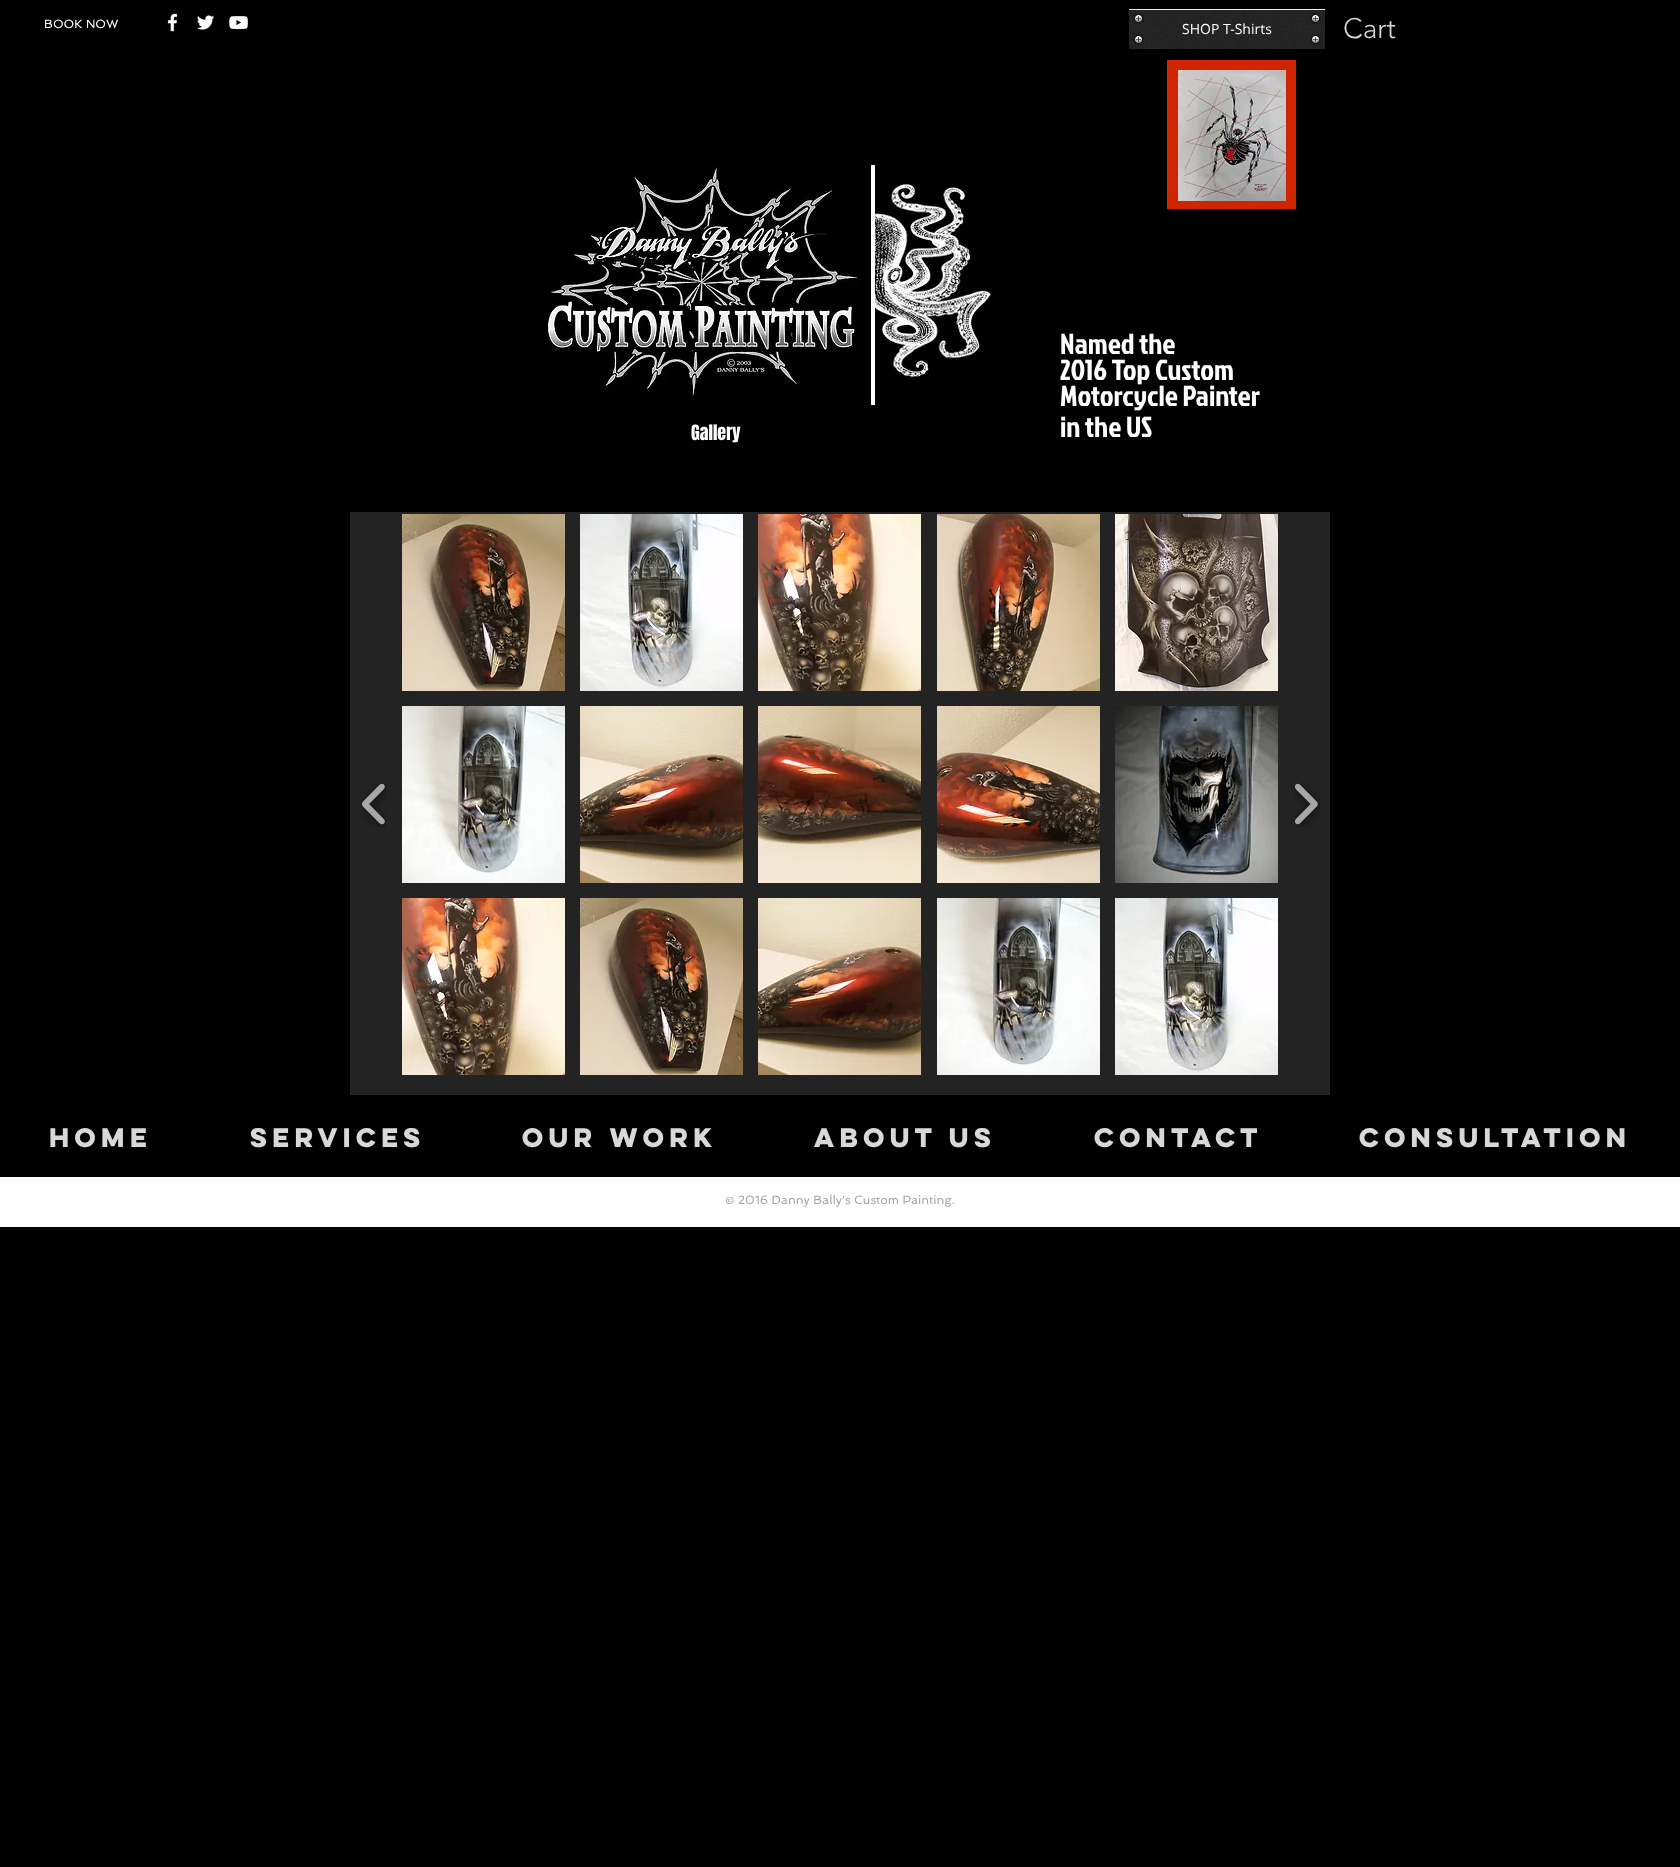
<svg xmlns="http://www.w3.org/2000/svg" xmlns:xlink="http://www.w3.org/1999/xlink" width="1680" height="1867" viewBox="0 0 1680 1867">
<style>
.cls-1{font:12px Spinnaker;fill:#ffffff}
.cls-2{font:14px Open Sans;fill:#ffffff}
.cls-3{font:300 28px 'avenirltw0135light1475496';fill:#d8d8d8}
.cls-4{font:29px Jockey One;fill:#ffffff}
.cls-5{font:18px Anton;fill:#ffffff}
.cls-6{font:16px Raleway;fill:#bca789}
.cls-7{font:16px Raleway;fill:#493e34}
.cls-8{font:bold 24px 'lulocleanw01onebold';fill:#d8d8d8}
.cls-9{font:12px Spinnaker;fill:#a5a5a5}
</style>
<rect width="100%" height="100%" fill="#000000"/>
<image xlink:href="image0.png" x="167" y="13" width="11" height="19"/>
<image xlink:href="image1.png" x="197" y="15" width="17" height="15"/>
<image xlink:href="image2.png" x="229" y="16" width="19" height="14"/>
<rect fill="#232323" x="1129" y="9" width="196" height="40"/>
<image xlink:href="image3.png" x="1129" y="9" width="195" height="40"/>
<rect fill="#ffffff" fill-opacity="0.92" x="1129" y="9" width="196" height="1"/>
<image xlink:href="image4.png" x="1133" y="13" width="11" height="11"/>
<image xlink:href="image5.png" x="1310" y="13" width="11" height="11"/>
<image xlink:href="image6.png" x="1133" y="34" width="11" height="11"/>
<image xlink:href="image7.png" x="1310" y="34" width="11" height="11"/>
<rect fill="#d12502" x="1167" y="60" width="129" height="149"/>
<image xlink:href="image8.png" x="1178" y="70" width="108" height="131"/>
<image xlink:href="image9.png" x="548" y="165" width="312" height="232"/>
<rect fill="#ffffff" x="871" y="165" width="4" height="240"/>
<image xlink:href="image10.png" x="875" y="184" width="116" height="193"/>
<rect fill="#232323" x="350" y="512" width="980" height="583"/>
<image xlink:href="image11.png" x="402" y="514" width="163" height="177"/>
<image xlink:href="image12.png" x="580" y="514" width="163" height="177"/>
<image xlink:href="image13.png" x="758" y="514" width="163" height="177"/>
<image xlink:href="image14.png" x="937" y="514" width="163" height="177"/>
<image xlink:href="image15.png" x="1115" y="514" width="163" height="177"/>
<image xlink:href="image16.png" x="402" y="706" width="163" height="177"/>
<image xlink:href="image17.png" x="580" y="706" width="163" height="177"/>
<image xlink:href="image18.png" x="758" y="706" width="163" height="177"/>
<image xlink:href="image19.png" x="937" y="706" width="163" height="177"/>
<image xlink:href="image20.png" x="1115" y="706" width="163" height="177"/>
<image xlink:href="image13.png" x="402" y="898" width="163" height="177"/>
<image xlink:href="image11.png" x="580" y="898" width="163" height="177"/>
<image xlink:href="image17.png" x="758" y="898" width="163" height="177"/>
<image xlink:href="image16.png" x="937" y="898" width="163" height="177"/>
<image xlink:href="image12.png" x="1115" y="898" width="163" height="177"/>
<image xlink:href="image21.png" x="361" y="783" width="25" height="44"/>
<image xlink:href="image22.png" x="1294" y="783" width="26" height="44"/>
<rect fill="#ffffff" x="0" y="1177" width="1680" height="50"/>
<text class="cls-1" x="44" y="28">BOOK NOW</text>
<text class="cls-2" x="1182" y="34">SHOP T-Shirts</text>
<text class="cls-3" x="1343" y="38">Cart</text>
<text class="cls-4"><tspan x="1060" y="354">Named the</tspan><tspan x="1060" y="380">2016 Top Custom</tspan><tspan x="1060" y="406">Motorcycle Painter</tspan><tspan x="1060" y="437">in the US</tspan></text>
<text class="cls-5" x="691" y="440">Gallery</text>
<text class="cls-6" x="412" y="540">1</text>
<text class="cls-7" x="1125" y="540">142</text>
<text class="cls-6" x="590" y="924">1</text>
<text class="cls-8" x="49" y="1147">HOME</text>
<text class="cls-8" x="250" y="1147">SERVICES</text>
<text class="cls-8" x="522" y="1147">OUR WORK</text>
<text class="cls-8" x="814" y="1147">ABOUT US</text>
<text class="cls-8" x="1094" y="1147">CONTACT</text>
<text class="cls-8" x="1359" y="1147">CONSULTATION</text>
<text class="cls-9" x="725" y="1204">© 2016 Danny Bally's Custom Painting.</text>
</svg>
